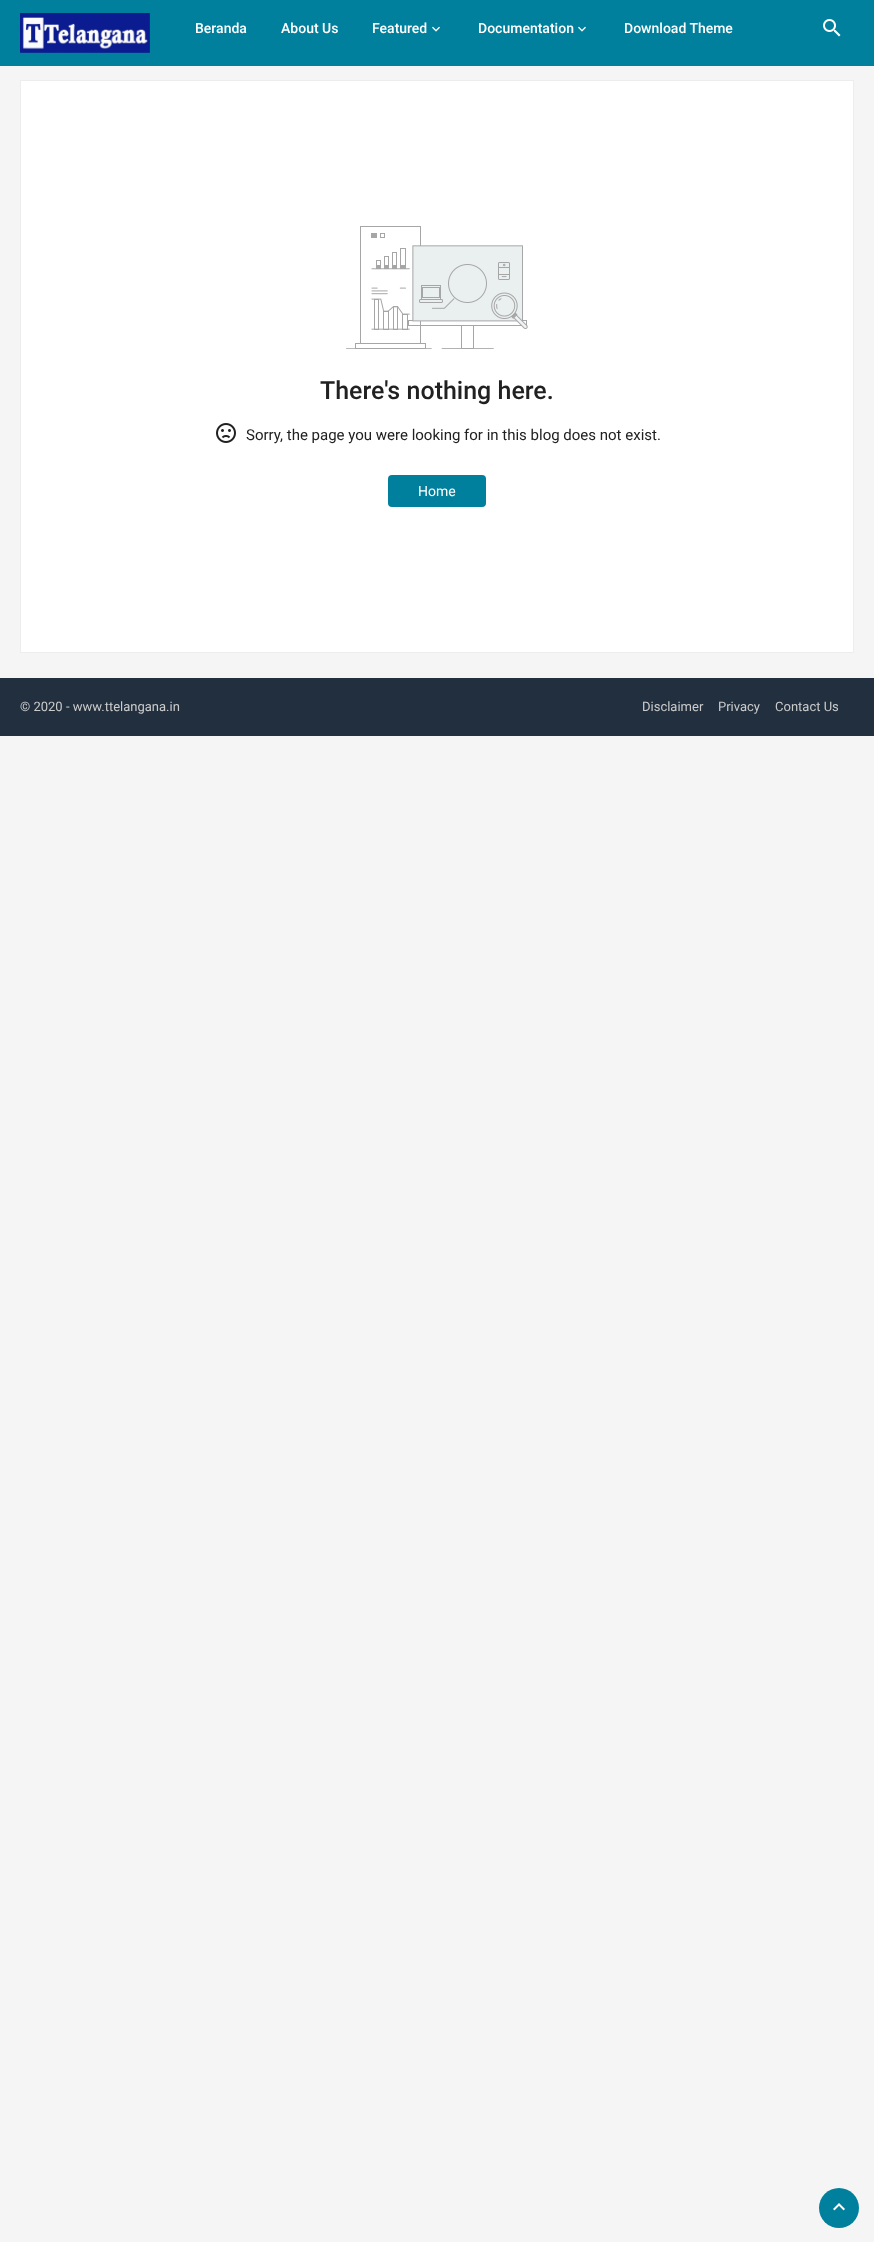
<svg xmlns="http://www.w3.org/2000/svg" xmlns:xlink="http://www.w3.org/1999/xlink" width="874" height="2242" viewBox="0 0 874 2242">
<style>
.cls-1{font:500 14px Roboto;fill:#ffffff}
.cls-2{font:500 25px Roboto;fill:#212121}
.cls-3{font:15px Roboto;fill:#212121}
.cls-4{font:14px Roboto;fill:#ffffff}
.cls-5{font:13px Roboto;fill:#cccccc}
</style>
<rect width="100%" height="100%" fill="#f5f5f5"/>
<rect fill="#00809d" x="0" y="0" width="874" height="66"/>
<image xlink:href="image0.png" x="20" y="13" width="130" height="40"/>
<image xlink:href="image1.png" x="432" y="26" width="8" height="6"/>
<image xlink:href="image1.png" x="578" y="26" width="8" height="6"/>
<image xlink:href="image2.png" x="823" y="19" width="18" height="18"/>
<rect fill="#ffffff" stroke="#ededed" x="20.5" y="80.5" width="833" height="572"/>
<image xlink:href="image3.png" x="346" y="226" width="182" height="123"/>
<image xlink:href="image4.png" x="216" y="423" width="20" height="20"/>
<rect fill="#00809d" x="388" y="475" width="98" height="32" rx="4"/>
<rect fill="#222f3e" x="0" y="678" width="874" height="58"/>
<circle fill="#00809d" cx="839" cy="2208" r="20"/>
<image xlink:href="image5.png" x="833" y="2203" width="12" height="8"/>
<text class="cls-1" x="195" y="33">Beranda</text>
<text class="cls-1" x="281" y="33">About Us</text>
<text class="cls-1" x="372" y="33">Featured</text>
<text class="cls-1" x="478" y="33">Documentation</text>
<text class="cls-1" x="624" y="33">Download Theme</text>
<text class="cls-2" x="320" y="399">There's nothing here.</text>
<text class="cls-3" x="246" y="440">Sorry, the page you were looking for in this blog does not exist.</text>
<text class="cls-4" x="418" y="496">Home</text>
<text class="cls-5" x="20" y="711">© 2020 - www.ttelangana.in</text>
<text class="cls-5" x="642" y="711">Disclaimer</text>
<text class="cls-5" x="718" y="711">Privacy</text>
<text class="cls-5" x="775" y="711">Contact Us</text>
</svg>
